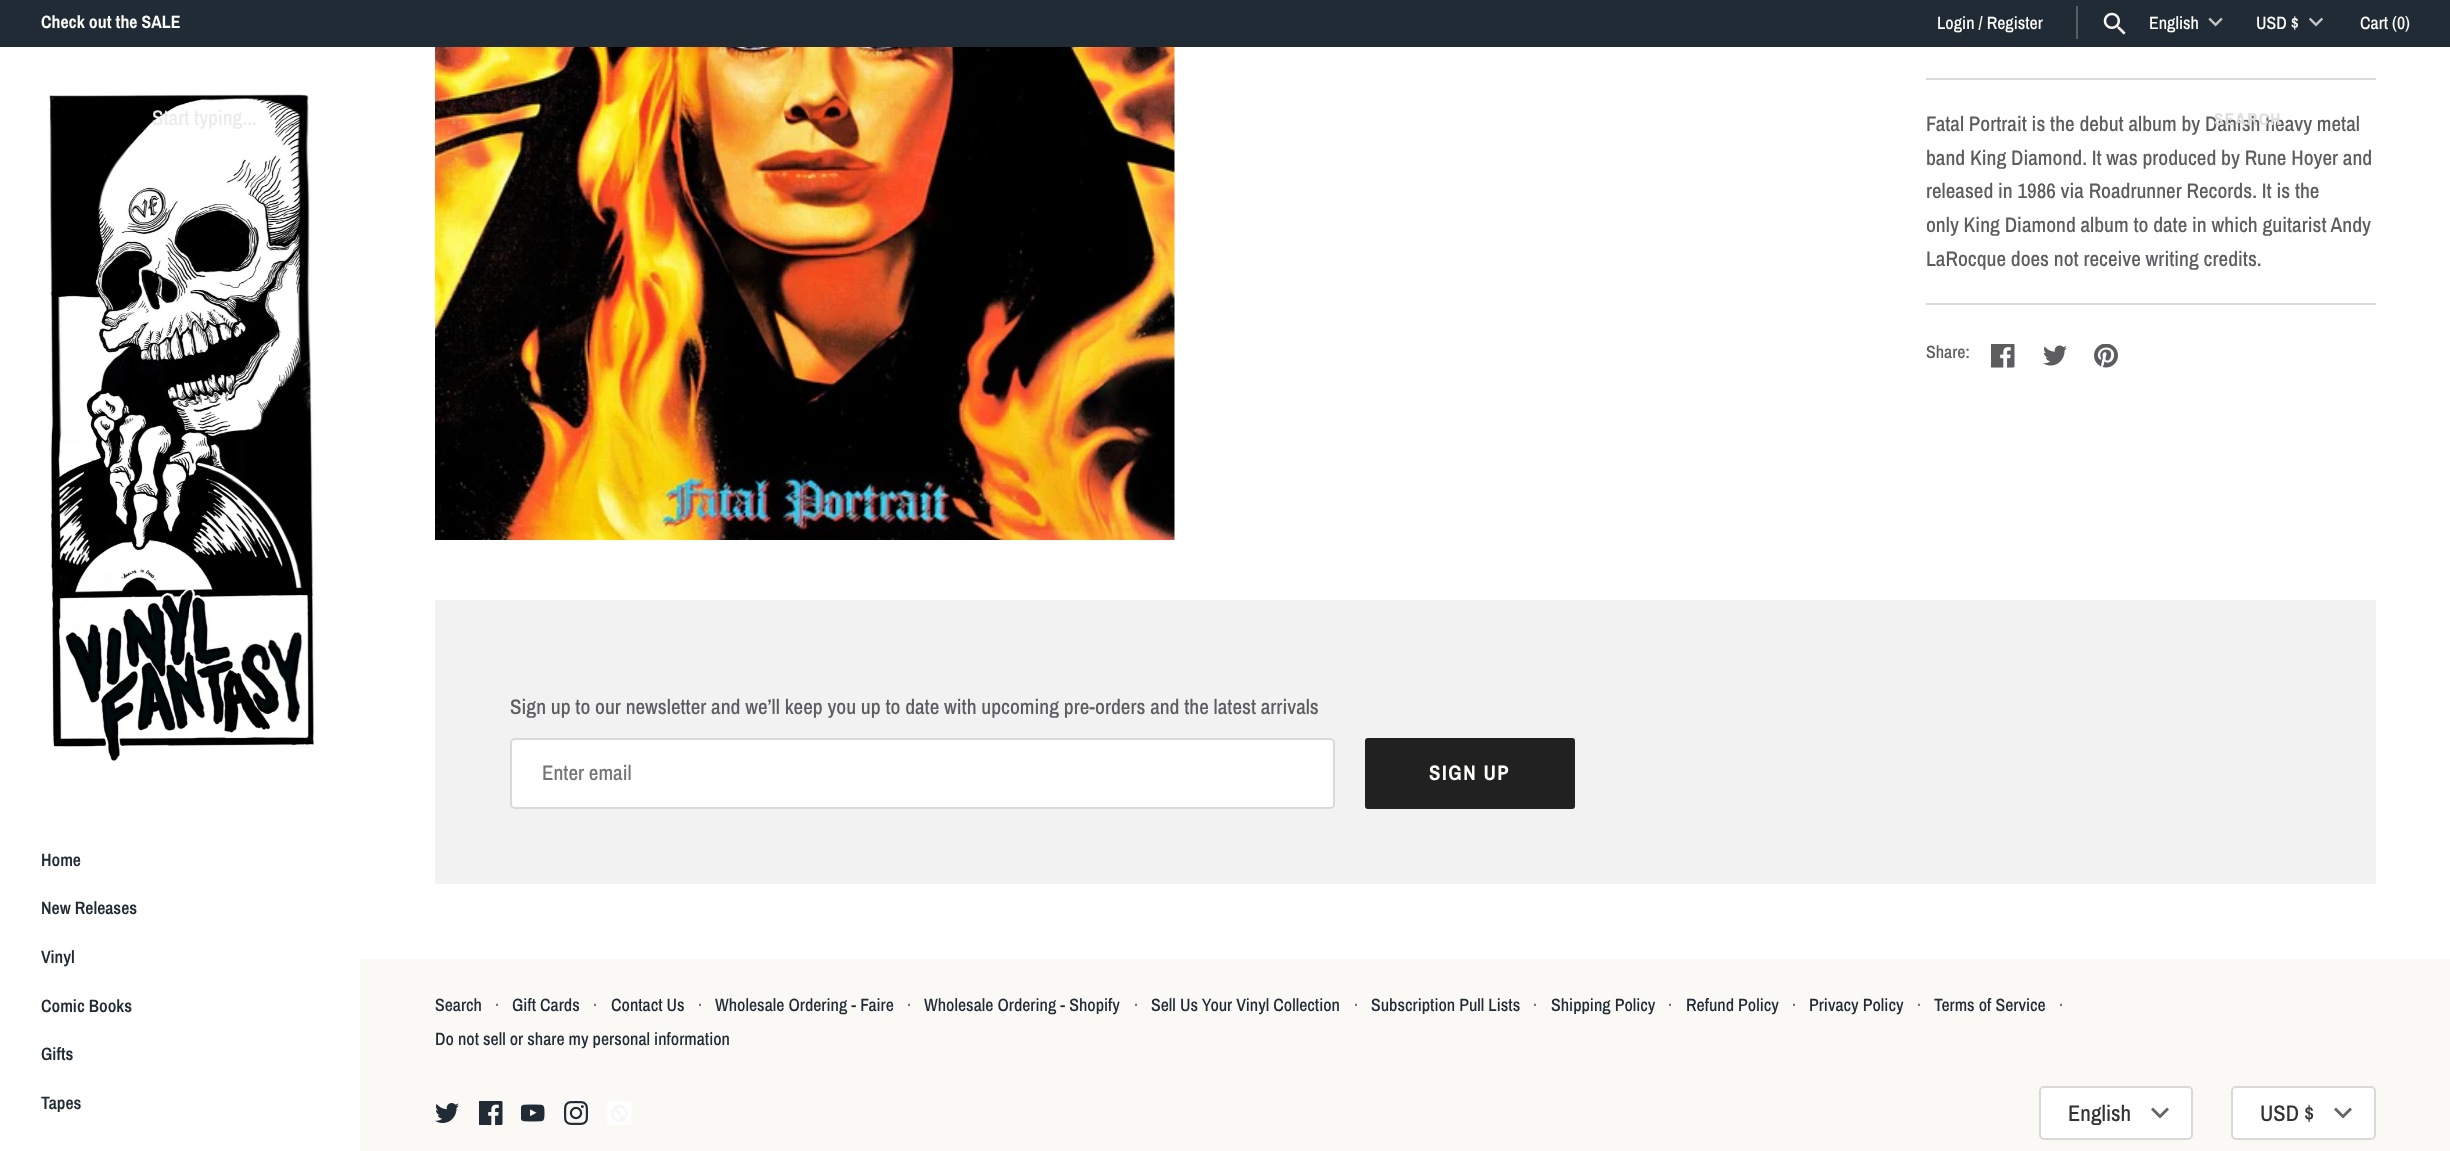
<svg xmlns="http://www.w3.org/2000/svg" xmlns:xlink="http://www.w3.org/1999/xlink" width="2450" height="1151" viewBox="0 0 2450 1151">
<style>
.cls-1{font:bold 17.8px Archivo Narrow;fill:#fdfdf9}
.cls-2{font:500 17.8px Archivo Narrow;fill:#fdfdf9}
.cls-3{font:500 21px Archivo Narrow;fill:#ebebeb}
.cls-4{font:600 17.8px Archivo Narrow;fill:#212b36}
.cls-5{font:500 21px Archivo Narrow;fill:#5d5d60}
.cls-6{font:bold 17px Archivo Narrow;letter-spacing:1.5px;fill:#dededf}
.cls-7{font:500 17.8px Archivo Narrow;fill:#5d5d60}
.cls-8{font:500 21px Archivo Narrow;fill:#757575}
.cls-9{font:bold 21px Archivo Narrow;letter-spacing:1.5px;fill:#fdfdf9}
.cls-10{font:500 17.8px Archivo Narrow;fill:#212b36}
.cls-11{font:500 17.8px Archivo Narrow;fill:#6d7379}
.cls-12{font:500 22.5px Archivo Narrow;fill:#333333}
</style>
<rect width="100%" height="100%" fill="#ffffff"/>
<rect fill="#212b36" x="0" y="0" width="2450" height="47"/>
<rect fill="#575f66" x="2076" y="6" width="2" height="33"/>
<image xlink:href="image0.png" x="2103" y="12" width="23" height="23"/>
<image xlink:href="image1.png" x="2208" y="17" width="15" height="10"/>
<image xlink:href="image2.png" x="2308" y="17" width="15" height="10"/>
<image xlink:href="image3.png" x="49" y="94" width="266" height="667"/>
<image xlink:href="image4.png" x="435" y="47" width="740" height="493"/>
<rect fill="#dbdad7" x="1926" y="78" width="450" height="2"/>
<rect fill="#dbdad7" x="1926" y="303" width="450" height="2"/>
<image xlink:href="image5.png" x="1991" y="344" width="24" height="24"/>
<image xlink:href="image6.png" x="2043" y="345" width="24" height="21"/>
<image xlink:href="image7.png" x="2094" y="344" width="24" height="24"/>
<rect fill="#f2f2f2" x="435" y="600" width="1941" height="284"/>
<rect fill="#ffffff" x="510" y="738" width="825" height="71" rx="5"/>
<rect fill="none" stroke="#000000" stroke-opacity="0.15" stroke-width="2" x="511" y="739" width="823" height="69" rx="4"/>
<rect fill="#212121" stroke="#212121" stroke-width="2" x="1366" y="739" width="208" height="69" rx="2"/>
<rect fill="#faf9f5" x="360" y="959" width="2090" height="192"/>
<image xlink:href="image8.png" x="435" y="1103" width="24" height="20"/>
<image xlink:href="image9.png" x="479" y="1101" width="24" height="24"/>
<image xlink:href="image10.png" x="521" y="1104" width="24" height="18"/>
<image xlink:href="image11.png" x="564" y="1101" width="24" height="24"/>
<image xlink:href="image12.png" x="607" y="1101" width="25" height="24"/>
<rect fill="#ffffff" x="2039" y="1086" width="154" height="54" rx="5"/>
<rect fill="none" stroke="#000000" stroke-opacity="0.15" stroke-width="2" x="2040" y="1087" width="152" height="52" rx="4"/>
<path fill="#666666" d="M2153 1107.5L2160 1114.5L2167 1107.5L2169 1109.5L2160 1118.5L2151 1109.5Z"/>
<rect fill="#ffffff" x="2231" y="1086" width="145" height="54" rx="5"/>
<rect fill="none" stroke="#000000" stroke-opacity="0.15" stroke-width="2" x="2232" y="1087" width="143" height="52" rx="4"/>
<path fill="#666666" d="M2336 1107.5L2343 1114.5L2350 1107.5L2352 1109.5L2343 1118.5L2334 1109.5Z"/>
<text class="cls-1" x="41" y="28">Check out the SALE</text>
<text class="cls-2" x="1937" y="29">Login / Register</text>
<text class="cls-2" x="2149" y="29">English</text>
<text class="cls-2" x="2256" y="29">USD $</text>
<text class="cls-2" x="2360" y="29">Cart (0)</text>
<text class="cls-3" x="152" y="125">Start typing...</text>
<text class="cls-4" x="41" y="866">Home</text>
<text class="cls-4" x="41" y="914">New Releases</text>
<text class="cls-4" x="41" y="963">Vinyl</text>
<text class="cls-4" x="41" y="1012">Comic Books</text>
<text class="cls-4" x="41" y="1060">Gifts</text>
<text class="cls-4" x="41" y="1109">Tapes</text>
<text class="cls-5" x="1926" y="131">Fatal Portrait is the debut album by Danish heavy metal</text>
<text class="cls-6" x="2214" y="125">SEARCH</text>
<text class="cls-5"><tspan x="1926" y="165">band King Diamond. It was produced by Rune Hoyer and</tspan><tspan x="1926" y="198">released in 1986 via Roadrunner Records. It is the</tspan><tspan x="1926" y="232">only King Diamond album to date in which guitarist Andy</tspan><tspan x="1926" y="266">LaRocque does not receive writing credits.</tspan></text>
<text class="cls-7" x="1926" y="358">Share:</text>
<text class="cls-5" x="510" y="714">Sign up to our newsletter and we’ll keep you up to date with upcoming pre-orders and the latest arrivals</text>
<text class="cls-8" x="542" y="780">Enter email</text>
<text class="cls-9" x="1429" y="780">SIGN UP</text>
<text class="cls-10" x="435" y="1011">Search</text>
<text class="cls-11" x="495" y="1011">·</text>
<text class="cls-10" x="512" y="1011">Gift Cards</text>
<text class="cls-11" x="593" y="1011">·</text>
<text class="cls-10" x="611" y="1011">Contact Us</text>
<text class="cls-11" x="698" y="1011">·</text>
<text class="cls-10" x="715" y="1011">Wholesale Ordering - Faire</text>
<text class="cls-11" x="907" y="1011">·</text>
<text class="cls-10" x="924" y="1011">Wholesale Ordering - Shopify</text>
<text class="cls-11" x="1134" y="1011">·</text>
<text class="cls-10" x="1151" y="1011">Sell Us Your Vinyl Collection</text>
<text class="cls-11" x="1354" y="1011">·</text>
<text class="cls-10" x="1371" y="1011">Subscription Pull Lists</text>
<text class="cls-11" x="1533" y="1011">·</text>
<text class="cls-10" x="1551" y="1011">Shipping Policy</text>
<text class="cls-11" x="1668" y="1011">·</text>
<text class="cls-10" x="1686" y="1011">Refund Policy</text>
<text class="cls-11" x="1792" y="1011">·</text>
<text class="cls-10" x="1809" y="1011">Privacy Policy</text>
<text class="cls-11" x="1917" y="1011">·</text>
<text class="cls-10" x="1934" y="1011">Terms of Service</text>
<text class="cls-11" x="2059" y="1011">·</text>
<text class="cls-10" x="435" y="1045">Do not sell or share my personal information</text>
<text class="cls-12" x="2068" y="1121">English</text>
<text class="cls-12" x="2260" y="1121">USD $</text>
</svg>
